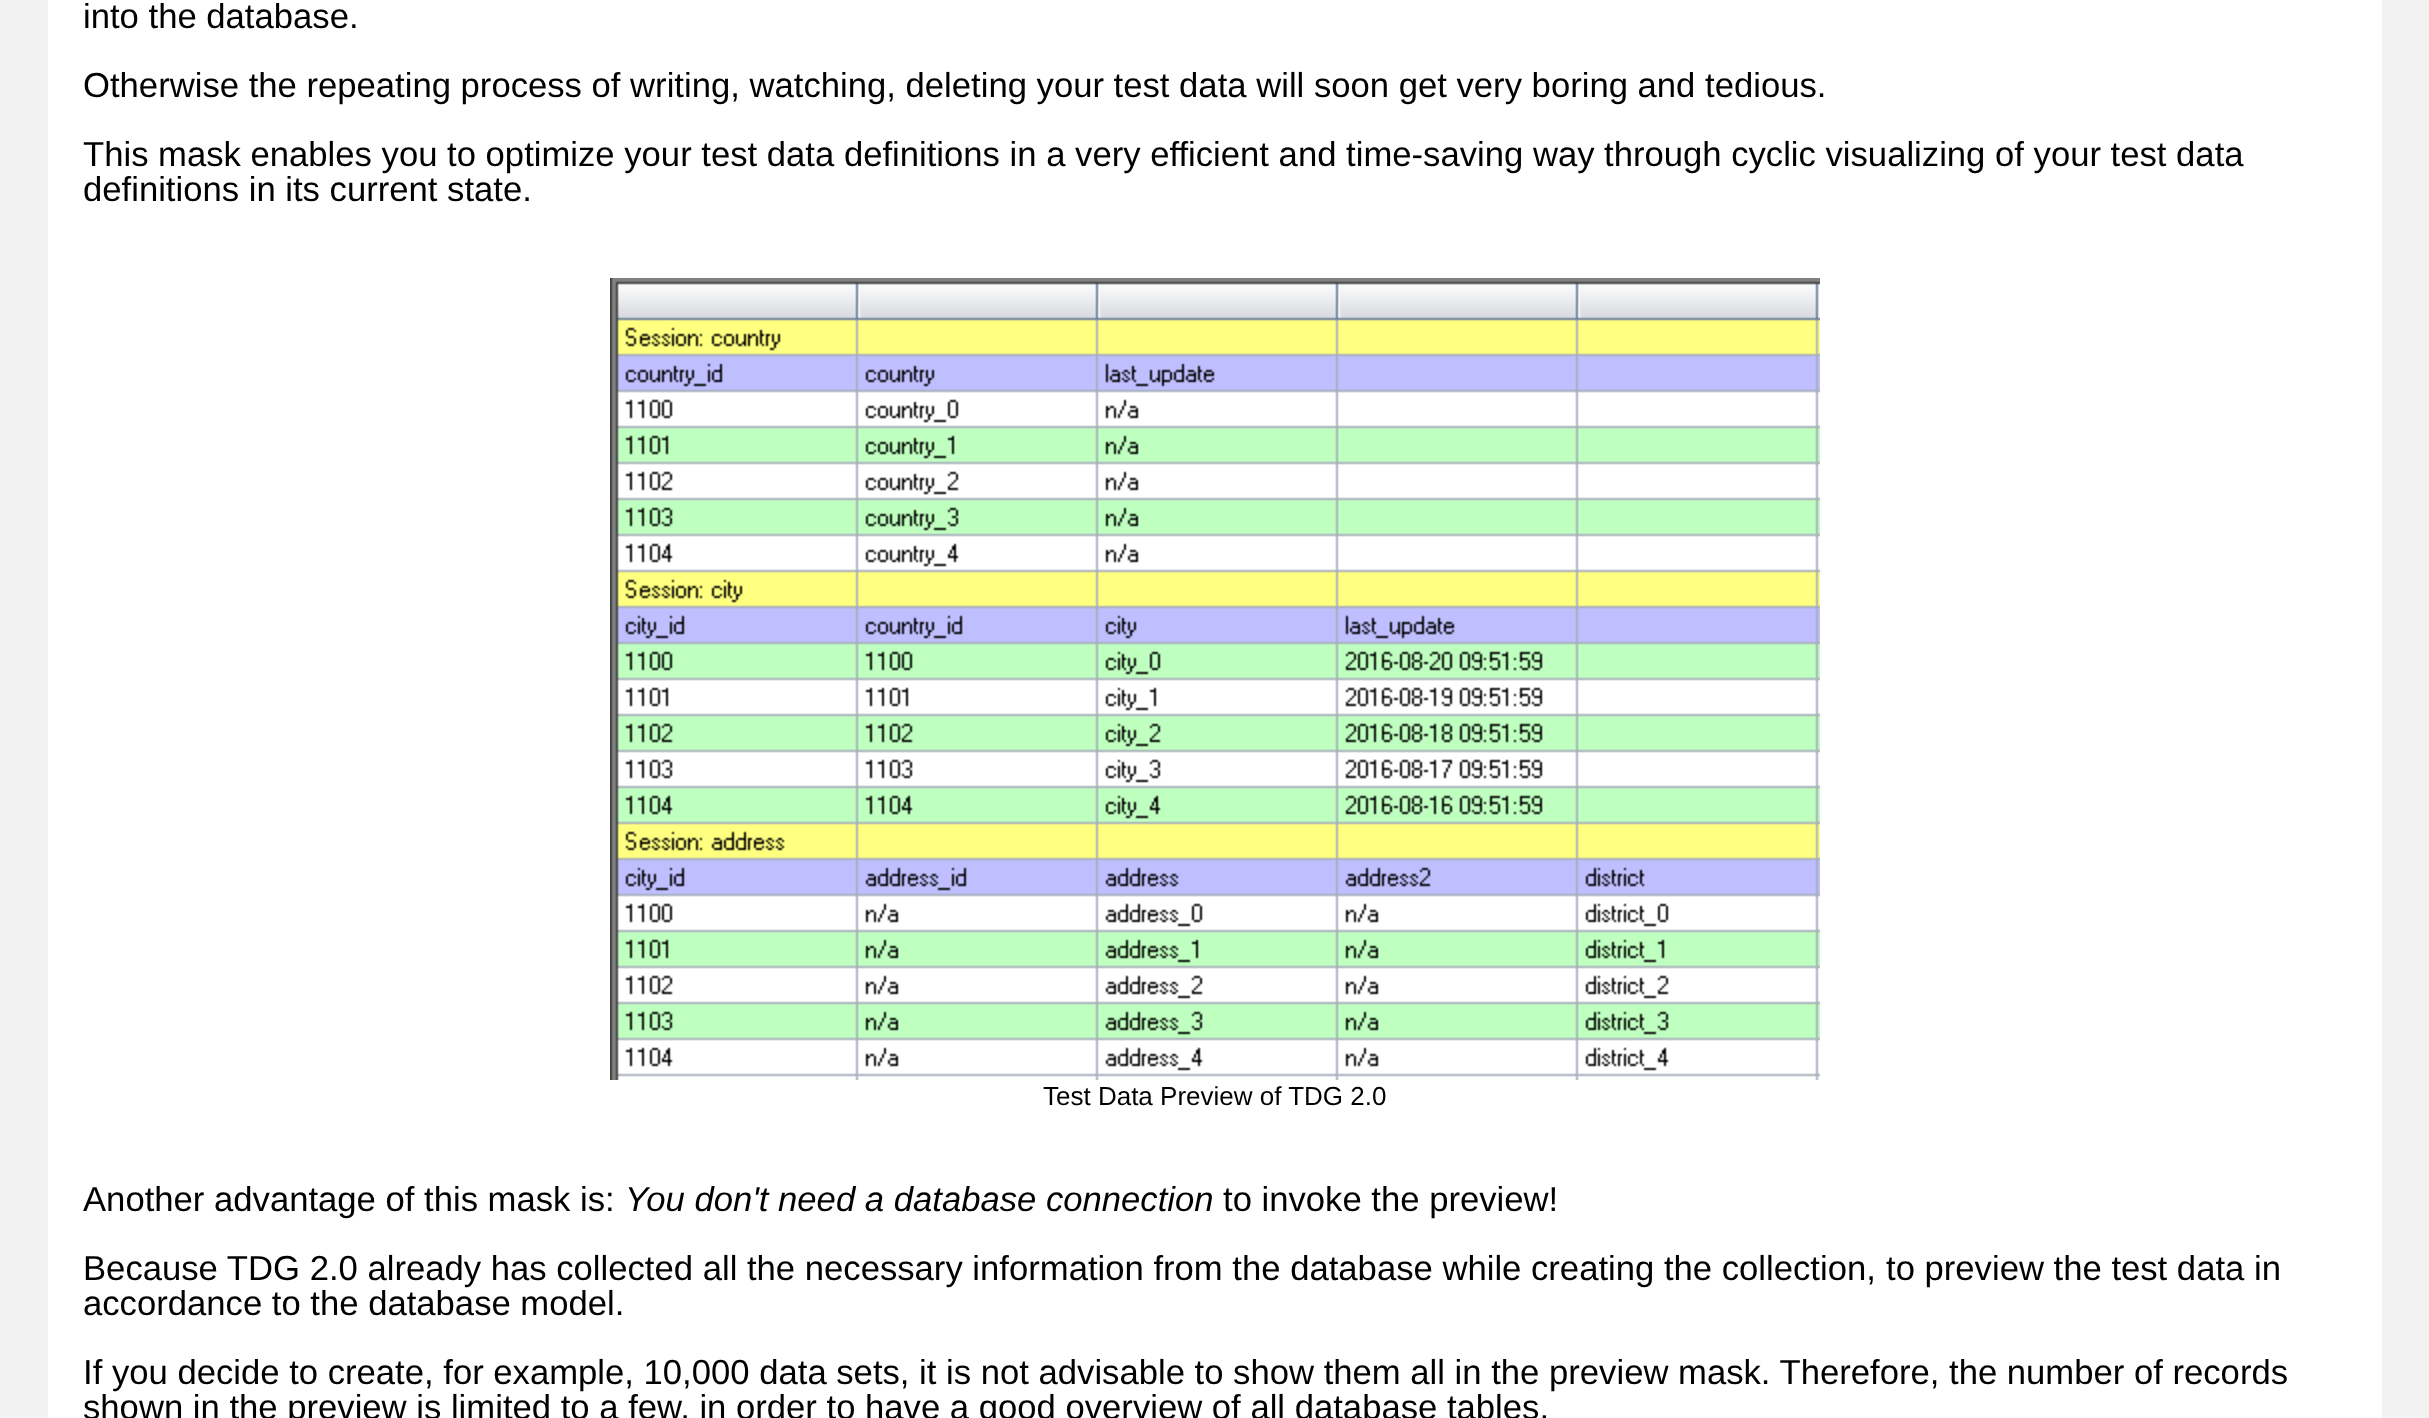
<svg xmlns="http://www.w3.org/2000/svg" xmlns:xlink="http://www.w3.org/1999/xlink" width="2429" height="1418" viewBox="0 0 2429 1418">
<style>
.cls-1{font:34.67px Liberation Sans;fill:#000000}
.cls-2{font:26px Liberation Sans;fill:#000000}
.cls-3{font:italic 34.67px Liberation Sans;fill:#000000}
</style>
<rect width="100%" height="100%" fill="#f2f2f2"/>
<rect fill="#ffffff" x="48" y="0" width="2334" height="1418"/>
<image xlink:href="image0.png" x="610" y="278" width="1210" height="802"/>
<text class="cls-1"><tspan x="83" y="28">into the database.</tspan><tspan x="83" y="97">Otherwise the repeating process of writing, watching, deleting your test data will soon get very boring and tedious.</tspan><tspan x="83" y="166">This mask enables you to optimize your test data definitions in a very efficient and time-saving way</tspan></text>
<text class="cls-1" x="1604" y="166">through cyclic visualizing of your test data</text>
<text class="cls-1" x="83" y="201">definitions in its current state.</text>
<text class="cls-2" x="1043" y="1105">Test Data Preview of TDG 2.0</text>
<text class="cls-1" x="83" y="1211">Another advantage of this mask is:</text>
<text class="cls-3" x="625" y="1211">You don't need a database connection</text>
<text class="cls-1" x="1223" y="1211">to invoke the preview!</text>
<text class="cls-1" x="83" y="1280">Because TDG 2.0 already has collected all the necessary information from the database while creating the collection,</text>
<text class="cls-1" x="1886" y="1280">to preview the test data in</text>
<text class="cls-1"><tspan x="83" y="1315">accordance to the database model.</tspan><tspan x="83" y="1384">If you decide to create, for example, 10,000 data sets, it is not advisable to show them all in the preview mask. Therefore, the number of records</tspan><tspan x="83" y="1419">shown in the preview is limited to a few, in order to have a good overview of all database tables.</tspan></text>
</svg>
